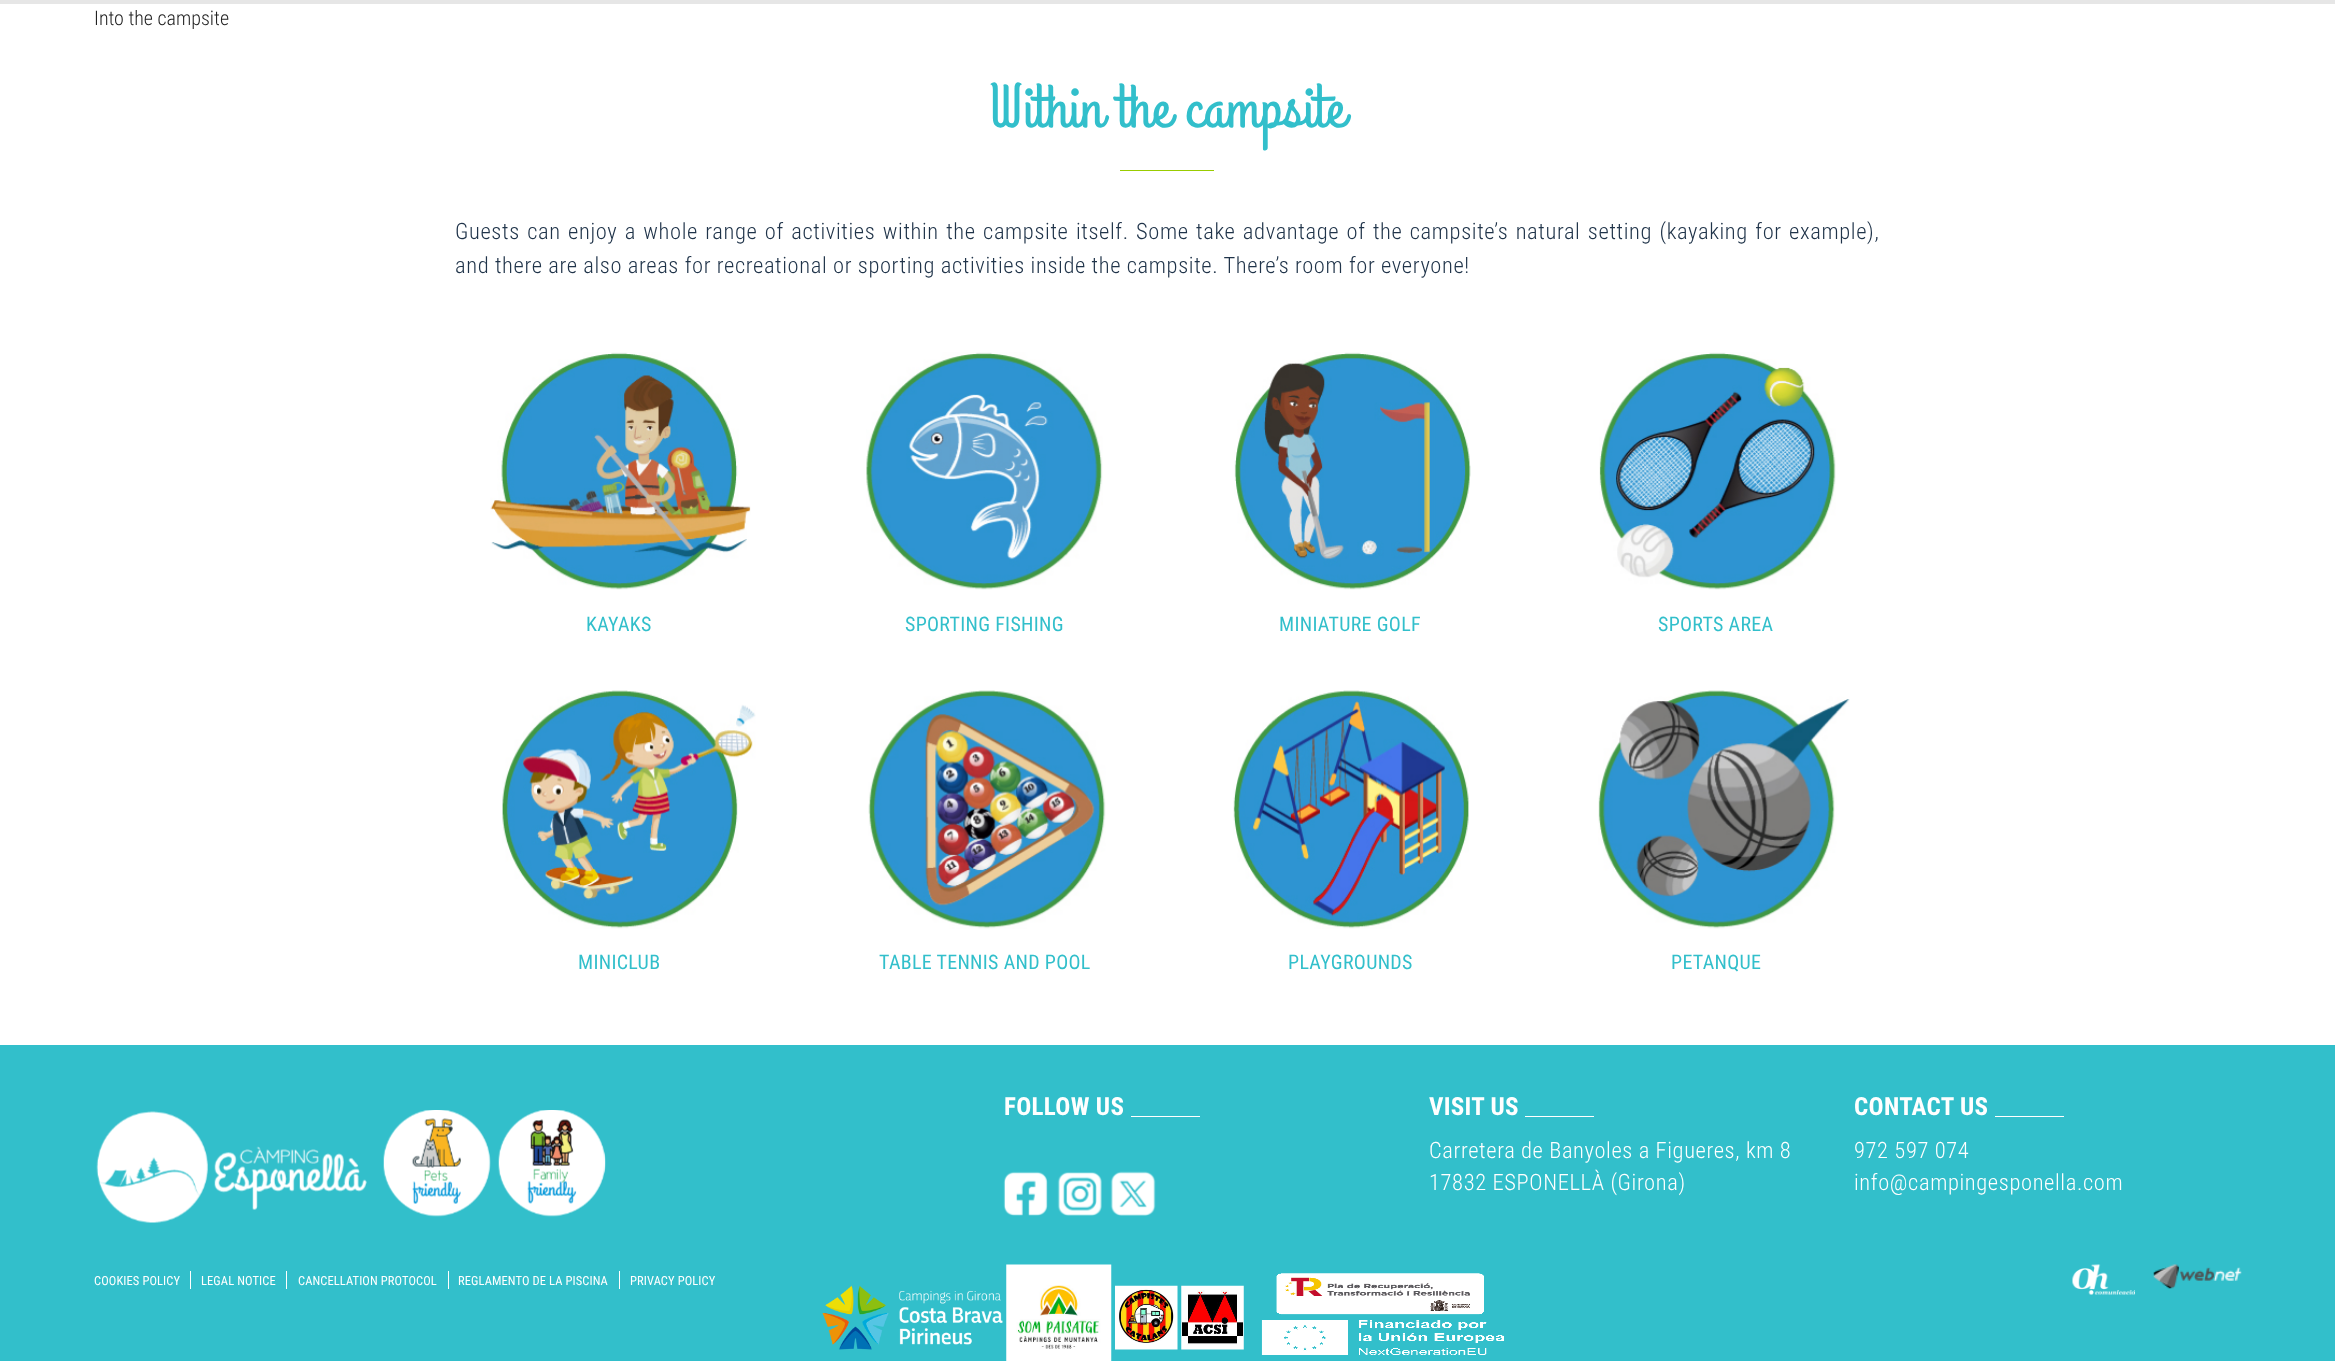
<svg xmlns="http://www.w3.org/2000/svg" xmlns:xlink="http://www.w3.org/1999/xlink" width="2335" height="1361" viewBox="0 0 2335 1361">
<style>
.cls-1{font:300 20px Roboto Condensed;fill:#222222}
.cls-2{font:62.5px Grand Hotel;letter-spacing:0.3px;fill:#32bfcb}
.cls-3{font:300 22.5px Roboto Condensed;letter-spacing:0.62px;fill:#20344a}
.cls-4{font:20px Roboto Condensed;letter-spacing:0.3px;fill:#32bfcb}
.cls-5{font:bold 25px Roboto Condensed;letter-spacing:0.3px;fill:#ffffff}
.cls-6{font:300 22.5px Roboto Condensed;letter-spacing:0.62px;fill:#ffffff}
.cls-7{font:12.5px Roboto Condensed;letter-spacing:0.1px;fill:#ffffff}
</style>
<rect width="100%" height="100%" fill="#ffffff"/>
<rect fill="#e6e6e6" x="0" y="0" width="2335" height="4"/>
<rect fill="#99cc00" x="1120" y="170" width="94" height="1"/>
<image xlink:href="image0.png" x="490" y="352" width="261" height="238"/>
<image xlink:href="image1.png" x="866" y="352" width="237" height="238"/>
<image xlink:href="image2.png" x="1234" y="352" width="237" height="238"/>
<image xlink:href="image3.png" x="1599" y="352" width="237" height="238"/>
<image xlink:href="image4.png" x="502" y="690" width="254" height="239"/>
<image xlink:href="image5.png" x="868" y="690" width="238" height="239"/>
<image xlink:href="image6.png" x="1233" y="690" width="236" height="239"/>
<image xlink:href="image7.png" x="1598" y="690" width="252" height="239"/>
<rect fill="#32bfcb" x="0" y="1045" width="2335" height="316"/>
<image xlink:href="image8.png" x="96" y="1111" width="271" height="112"/>
<image xlink:href="image9.png" x="383" y="1110" width="108" height="107"/>
<image xlink:href="image10.png" x="498" y="1110" width="108" height="107"/>
<rect fill="#ffffff" x="1131" y="1116" width="69" height="1"/>
<image xlink:href="image11.png" x="1003" y="1171" width="45" height="45"/>
<image xlink:href="image12.png" x="1057" y="1172" width="45" height="44"/>
<image xlink:href="image13.png" x="1110" y="1171" width="46" height="45"/>
<rect fill="#ffffff" x="1525" y="1116" width="69" height="1"/>
<rect fill="#ffffff" x="1995" y="1116" width="69" height="1"/>
<rect fill="#ffffff" x="190" y="1271" width="1" height="18"/>
<rect fill="#ffffff" x="286" y="1271" width="1" height="18"/>
<rect fill="#ffffff" x="448" y="1271" width="1" height="18"/>
<rect fill="#ffffff" x="619" y="1271" width="1" height="18"/>
<image xlink:href="image14.png" x="822" y="1285" width="181" height="65"/>
<image xlink:href="image15.png" x="1006" y="1264" width="106" height="97"/>
<image xlink:href="image16.png" x="1115" y="1285" width="63" height="65"/>
<image xlink:href="image17.png" x="1181" y="1285" width="63" height="65"/>
<image xlink:href="image18.png" x="1261" y="1273" width="243" height="82"/>
<image xlink:href="image19.png" x="2072" y="1264" width="63" height="31"/>
<image xlink:href="image20.png" x="2153" y="1264" width="89" height="25"/>
<text class="cls-1" x="94" y="25">Into the campsite</text>
<text class="cls-2" x="989" y="126">Within the campsite</text>
<text class="cls-3"><tspan x="455" y="239" word-spacing="1.7">Guests can enjoy a whole range of activities within the campsite itself. Some take advantage of the campsite’s natural setting (kayaking for example),</tspan><tspan x="455" y="273">and there are also areas for recreational or sporting activities inside the campsite. There’s room for everyone!</tspan></text>
<text class="cls-4" x="586" y="631">KAYAKS</text>
<text class="cls-4" x="905" y="631">SPORTING FISHING</text>
<text class="cls-4" x="1279" y="631">MINIATURE GOLF</text>
<text class="cls-4" x="1658" y="631">SPORTS AREA</text>
<text class="cls-4" x="578" y="969">MINICLUB</text>
<text class="cls-4" x="879" y="969">TABLE TENNIS AND POOL</text>
<text class="cls-4" x="1288" y="969">PLAYGROUNDS</text>
<text class="cls-4" x="1671" y="969">PETANQUE</text>
<text class="cls-5" x="1004" y="1115">FOLLOW US</text>
<text class="cls-5" x="1429" y="1115">VISIT US</text>
<text class="cls-6"><tspan x="1429" y="1158">Carretera de Banyoles a Figueres, km 8</tspan><tspan x="1429" y="1190">17832 ESPONELLÀ (Girona)</tspan></text>
<text class="cls-5" x="1854" y="1115">CONTACT US</text>
<text class="cls-6"><tspan x="1854" y="1158">972 597 074</tspan><tspan x="1854" y="1190">info@campingesponella.com</tspan></text>
<text class="cls-7" x="94" y="1285">COOKIES POLICY</text>
<text class="cls-7" x="201" y="1285">LEGAL NOTICE</text>
<text class="cls-7" x="298" y="1285">CANCELLATION PROTOCOL</text>
<text class="cls-7" x="458" y="1285">REGLAMENTO DE LA PISCINA</text>
<text class="cls-7" x="630" y="1285">PRIVACY POLICY</text>
</svg>
